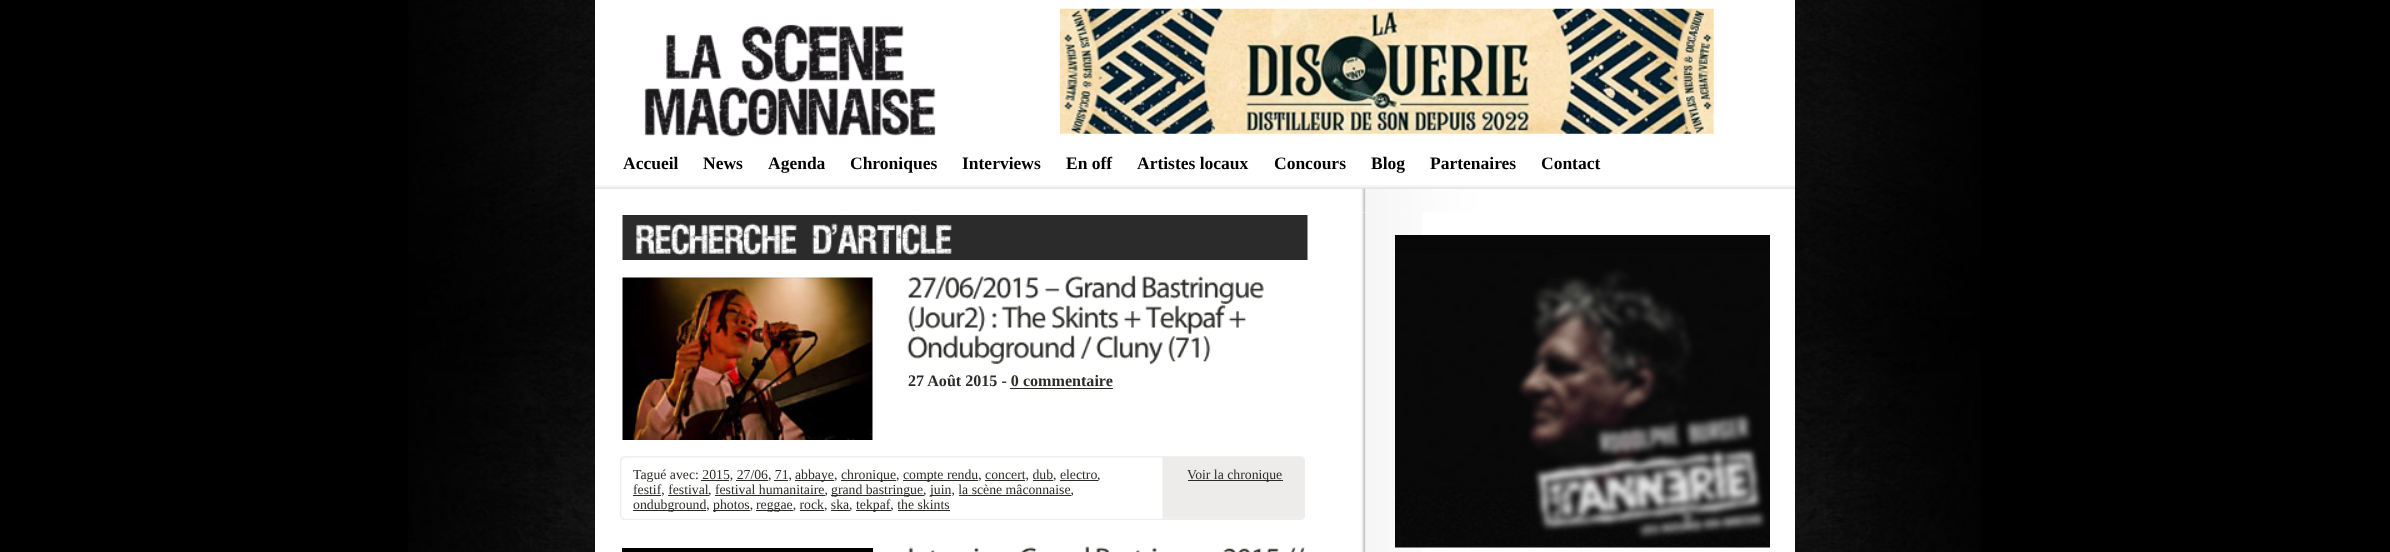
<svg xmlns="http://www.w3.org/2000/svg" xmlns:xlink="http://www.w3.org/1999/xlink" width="2390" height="552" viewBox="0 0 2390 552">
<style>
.cls-1{font:bold 17.5px Liberation Serif;fill:#000000}
.cls-2{font:bold 16.1px Liberation Serif;fill:#2c2c29}
.cls-3{font:13.75px Liberation Serif;fill:#2c2c29}
</style>
<rect width="100%" height="100%" fill="#000000"/>
<image xlink:href="image0.png" x="408" y="0" width="1573" height="552"/>
<rect fill="#ffffff" x="595" y="0" width="1200" height="552"/>
<image xlink:href="image1.png" x="595" y="185" width="1200" height="28"/>
<image xlink:href="image2.png" x="644" y="24" width="292" height="113"/>
<image xlink:href="image3.png" x="1060" y="8" width="654" height="126"/>
<image xlink:href="image4.png" x="1361" y="212" width="61" height="340"/>
<image xlink:href="image5.png" x="622" y="215" width="686" height="45"/>
<image xlink:href="image6.png" x="622" y="277" width="251" height="163"/>
<image xlink:href="image7.png" x="907" y="276" width="132" height="23"/>
<image xlink:href="image8.png" x="1044" y="288" width="16" height="4"/>
<image xlink:href="image9.png" x="1065" y="275" width="71" height="24"/>
<image xlink:href="image10.png" x="1142" y="276" width="122" height="28"/>
<image xlink:href="image11.png" x="908" y="306" width="78" height="26"/>
<image xlink:href="image12.png" x="992" y="312" width="5" height="17"/>
<image xlink:href="image13.png" x="1001" y="305" width="46" height="24"/>
<image xlink:href="image14.png" x="1051" y="305" width="68" height="24"/>
<image xlink:href="image15.png" x="1123" y="311" width="19" height="17"/>
<image xlink:href="image16.png" x="1145" y="304" width="82" height="30"/>
<image xlink:href="image15.png" x="1228" y="311" width="19" height="17"/>
<image xlink:href="image17.png" x="907" y="335" width="169" height="29"/>
<image xlink:href="image18.png" x="1080" y="336" width="12" height="23"/>
<image xlink:href="image19.png" x="1096" y="335" width="67" height="30"/>
<image xlink:href="image20.png" x="1168" y="336" width="43" height="26"/>
<rect fill="#2c2c29" x="1010" y="388" width="103" height="1"/>
<image xlink:href="image21.png" x="620" y="456" width="685" height="62"/>
<rect fill="#2c2c29" x="795" y="480" width="39" height="1"/>
<rect fill="#2c2c29" x="841" y="480" width="55" height="1"/>
<rect fill="#2c2c29" x="903" y="480" width="75" height="1"/>
<rect fill="#2c2c29" x="701" y="480" width="28" height="1"/>
<rect fill="#2c2c29" x="736" y="480" width="32" height="1"/>
<rect fill="#2c2c29" x="774" y="480" width="14" height="1"/>
<rect fill="#2c2c29" x="985" y="480" width="40" height="1"/>
<rect fill="#2c2c29" x="1033" y="480" width="20" height="1"/>
<rect fill="#2c2c29" x="1060" y="480" width="38" height="1"/>
<rect fill="#2c2c29" x="633" y="495" width="28" height="1"/>
<rect fill="#2c2c29" x="831" y="495" width="93" height="1"/>
<rect fill="#2c2c29" x="930" y="495" width="21" height="1"/>
<rect fill="#2c2c29" x="668" y="495" width="41" height="1"/>
<rect fill="#2c2c29" x="715" y="495" width="110" height="1"/>
<rect fill="#2c2c29" x="959" y="495" width="112" height="1"/>
<rect fill="#2c2c29" x="633" y="510" width="73" height="1"/>
<rect fill="#2c2c29" x="713" y="510" width="37" height="1"/>
<rect fill="#2c2c29" x="756" y="510" width="37" height="1"/>
<rect fill="#2c2c29" x="856" y="510" width="35" height="1"/>
<rect fill="#2c2c29" x="800" y="510" width="24" height="1"/>
<rect fill="#2c2c29" x="831" y="510" width="19" height="1"/>
<rect fill="#2c2c29" x="898" y="510" width="52" height="1"/>
<rect fill="#2c2c29" x="1188" y="480" width="95" height="1"/>
<image xlink:href="image22.png" x="621" y="517" width="683" height="3"/>
<rect fill="#000000" x="622" y="548" width="251" height="4"/>
<image xlink:href="image23.png" x="908" y="547" width="71" height="5"/>
<image xlink:href="image24.png" x="1021" y="546" width="68" height="6"/>
<image xlink:href="image25.png" x="1096" y="547" width="61" height="5"/>
<image xlink:href="image26.png" x="1223" y="548" width="56" height="4"/>
<image xlink:href="image27.png" x="1291" y="547" width="14" height="5"/>
<image xlink:href="image28.png" x="1395" y="235" width="375" height="313"/>
<text class="cls-1" x="623" y="169">Accueil</text>
<text class="cls-1" x="703" y="169">News</text>
<text class="cls-1" x="768" y="169">Agenda</text>
<text class="cls-1" x="850" y="169">Chroniques</text>
<text class="cls-1" x="962" y="169">Interviews</text>
<text class="cls-1" x="1066" y="169">En off</text>
<text class="cls-1" x="1137" y="169">Artistes locaux</text>
<text class="cls-1" x="1274" y="169">Concours</text>
<text class="cls-1" x="1371" y="169">Blog</text>
<text class="cls-1" x="1430" y="169">Partenaires</text>
<text class="cls-1" x="1541" y="169">Contact</text>
<text class="cls-2" x="908" y="386">27 Août 2015 - 0 commentaire</text>
<text class="cls-3" x="633" y="479">Tagué avec: 2015, 27/06, 71,</text>
<text class="cls-3" x="795" y="479">abbaye,</text>
<text class="cls-3" x="841" y="479">chronique,</text>
<text class="cls-3" x="903" y="479">compte rendu, concert, dub, electro</text>
<text class="cls-3" x="1097" y="479">,</text>
<text class="cls-3" x="633" y="494">festif, festival</text>
<text class="cls-3" x="708" y="494">, festival humanitaire,</text>
<text class="cls-3" x="831" y="494">grand bastringue,</text>
<text class="cls-3" x="930" y="494">juin, la scène mâconnaise,</text>
<text class="cls-3" x="633" y="509">ondubground,</text>
<text class="cls-3" x="713" y="509">photos,</text>
<text class="cls-3" x="756" y="509">reggae, rock, ska</text>
<text class="cls-3" x="849" y="509">,</text>
<text class="cls-3" x="856" y="509">tekpaf, the skints</text>
<text class="cls-3" x="1187" y="479">Voir la chronique</text>
</svg>
